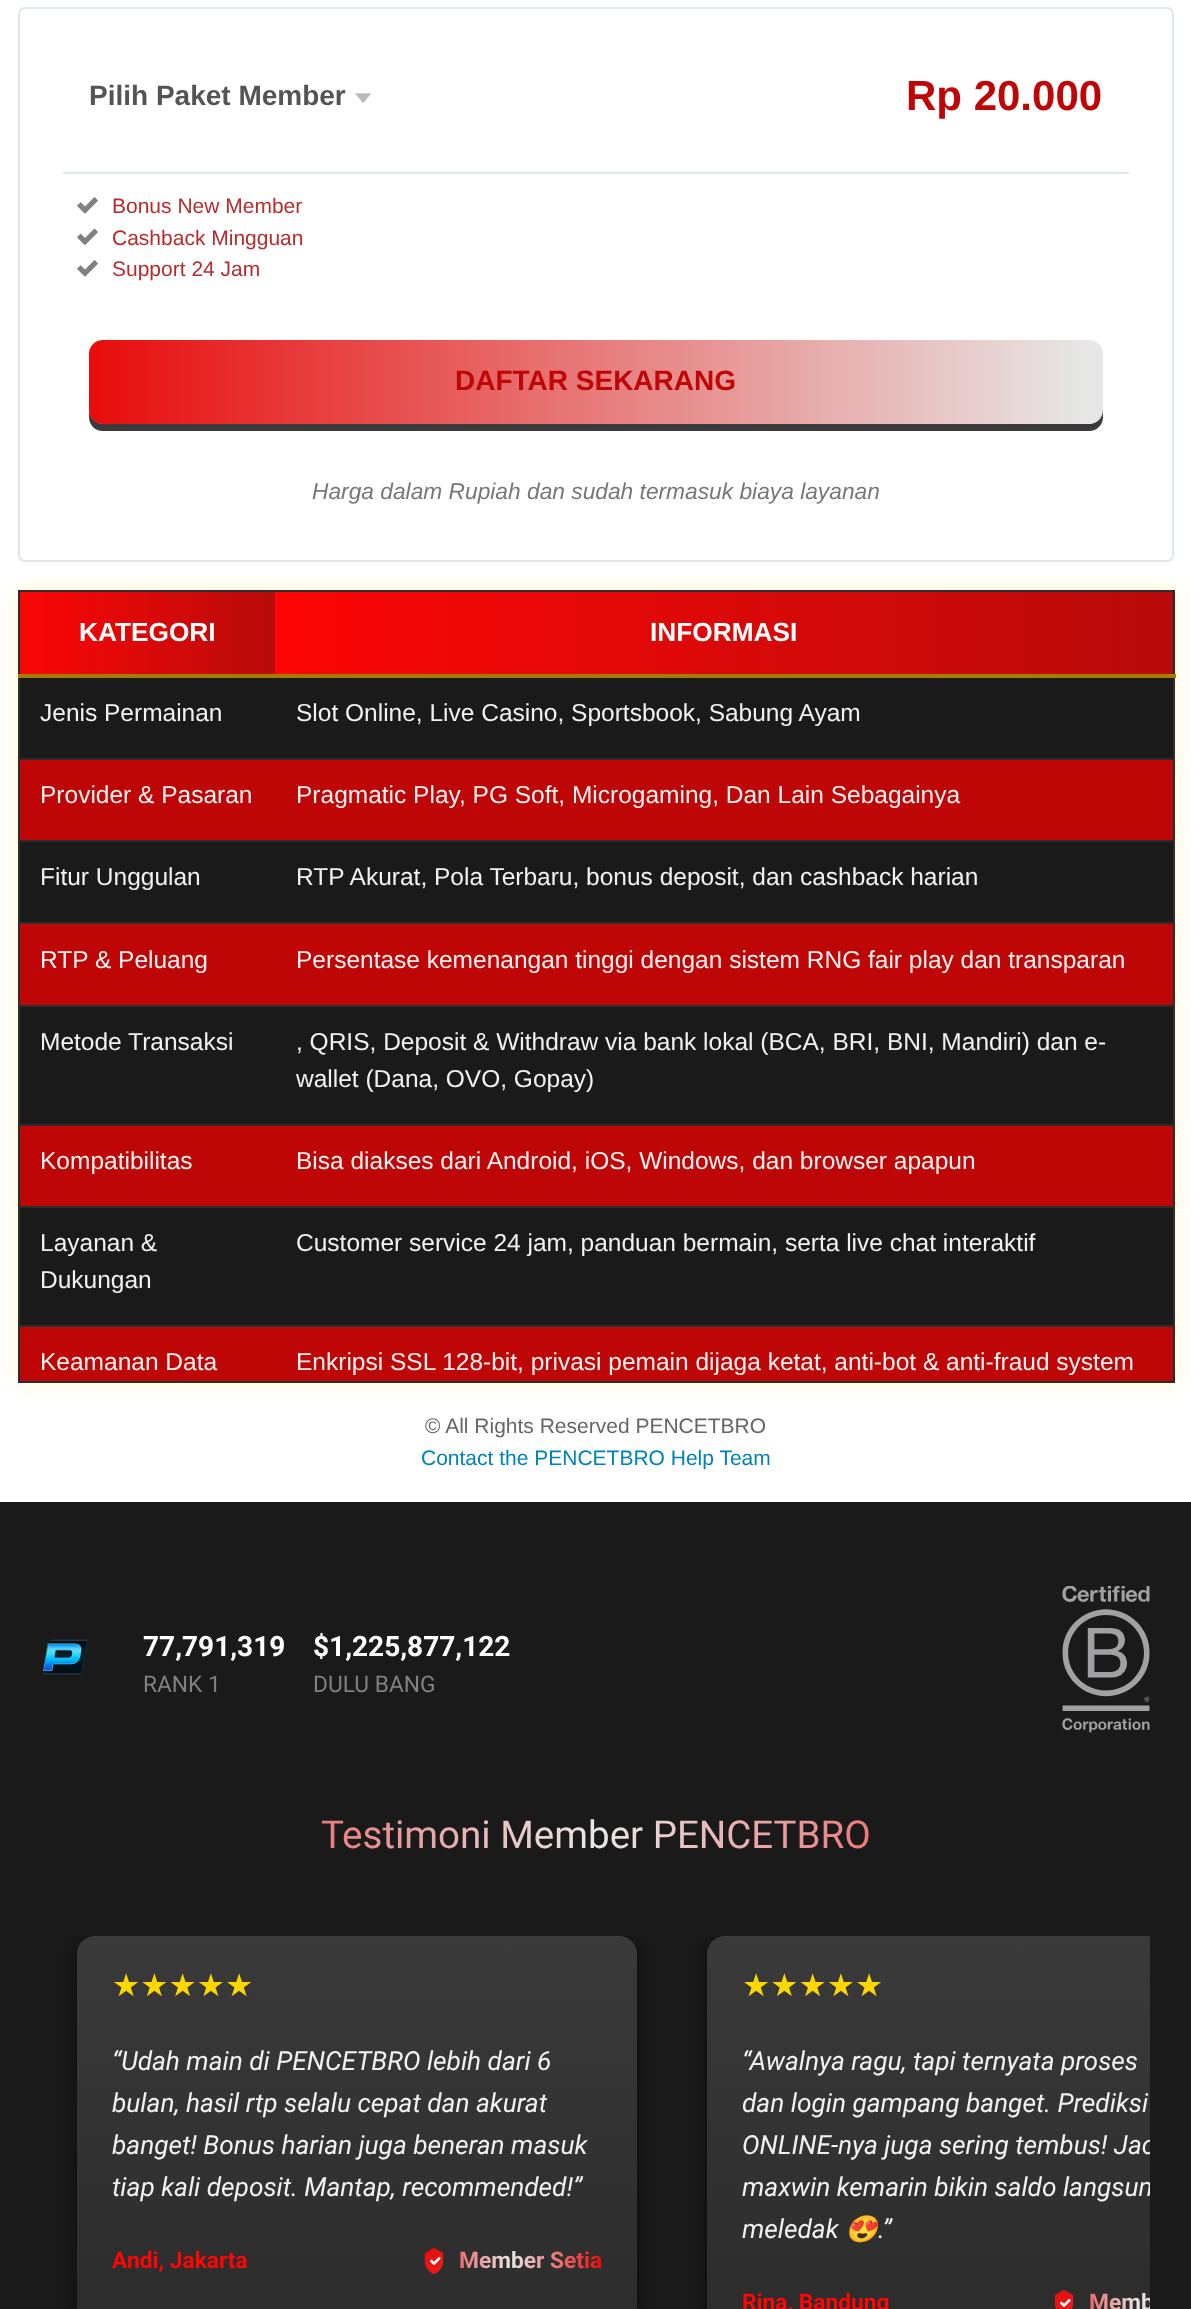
<svg xmlns="http://www.w3.org/2000/svg" xmlns:xlink="http://www.w3.org/1999/xlink" width="1191" height="2309" viewBox="0 0 1191 2309">
<style>
.cls-1{font:bold 28px Liberation Sans;fill:#545454}
.cls-2{font:bold 42px Liberation Sans;fill:#bf0606}
.cls-3{font:21px Liberation Sans;fill:#b62d2d}
.cls-4{font:bold 28px Liberation Sans;fill:#bf0606}
.cls-5{font:italic 22.75px Liberation Sans;fill:#777777}
.cls-6{font:bold 26.25px Liberation Sans;fill:#ffffff}
.cls-7{font:24.5px Liberation Sans;fill:#f1f1f1}
.cls-8{font:21px Liberation Sans;fill:#666666}
.cls-9{font:21px Liberation Sans;fill:#0084b4}
.cls-10{font:bold 28px Roboto;fill:#ffffff}
.cls-11{font:22.75px Roboto;fill:#808080}
.cls-12{font:38.5px Roboto;fill:url(#g5)}
.cls-13{font:31.5px DejaVu Sans;fill:#ffd700}
.cls-14{font:italic 26.25px Roboto;fill:#f1f1f1}
.cls-15{font:bold 22.75px Roboto;fill:#fd0606}
.cls-16{font:bold 22.75px Roboto;fill:url(#g6)}
.cls-17{font:italic 26.25px Noto Color Emoji;fill:#f1f1f1}
.cls-18{font:bold 22.75px Roboto;fill:url(#g8)}
</style>
<defs>
<linearGradient id="g1" gradientUnits="userSpaceOnUse" x1="89" y1="382" x2="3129" y2="381"><stop offset="0" stop-color="#e80c0c"/><stop offset="0.33" stop-color="#e8e8e8"/><stop offset="0.67" stop-color="#f00909"/><stop offset="1" stop-color="#bf0606"/></linearGradient>
<linearGradient id="g2" gradientUnits="userSpaceOnUse" x1="19" y1="632" x2="275" y2="632"><stop offset="0" stop-color="#fd0606"/><stop offset="1" stop-color="#b80b0b"/></linearGradient>
<linearGradient id="g3" gradientUnits="userSpaceOnUse" x1="275" y1="632" x2="1174" y2="632"><stop offset="0" stop-color="#fd0606"/><stop offset="1" stop-color="#b80b0b"/></linearGradient>
<clipPath id="clip1"><rect x="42" y="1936" width="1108" height="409"/></clipPath>
<linearGradient id="g4" gradientUnits="userSpaceOnUse" x1="357" y1="1936" x2="357" y2="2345"><stop offset="0" stop-color="#3b3a3a"/><stop offset="1" stop-color="#2b2b2b"/></linearGradient>
<linearGradient id="g5" gradientUnits="userSpaceOnUse" x1="42" y1="1843" x2="1150" y2="1843"><stop offset="0" stop-color="#e80c0c"/><stop offset="0.5" stop-color="#e8e8e8"/><stop offset="1" stop-color="#f00909"/></linearGradient>
<linearGradient id="g6" gradientUnits="userSpaceOnUse" x1="419" y1="2260" x2="602" y2="2260"><stop offset="0" stop-color="#e80c0c"/><stop offset="0.5" stop-color="#e8e8e8"/><stop offset="1" stop-color="#f00909"/></linearGradient>
<linearGradient id="g7" gradientUnits="userSpaceOnUse" x1="987" y1="1936" x2="987" y2="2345"><stop offset="0" stop-color="#3b3a3a"/><stop offset="1" stop-color="#2b2b2b"/></linearGradient>
<clipPath id="clip2"><rect x="42" y="1936" width="1108" height="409"/></clipPath>
<linearGradient id="g8" gradientUnits="userSpaceOnUse" x1="1049" y1="2302" x2="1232" y2="2302"><stop offset="0" stop-color="#e80c0c"/><stop offset="0.5" stop-color="#e8e8e8"/><stop offset="1" stop-color="#f00909"/></linearGradient>
</defs>
<rect width="100%" height="100%" fill="#ffffff"/>
<rect fill="none" stroke="#e1e8ed" stroke-width="2" x="19" y="8" width="1154" height="553" rx="6"/>
<image xlink:href="image0.png" x="355" y="93" width="16" height="10"/>
<rect fill="#e1e8ed" x="63" y="172" width="1066" height="2"/>
<image xlink:href="image1.png" x="77" y="197" width="21" height="17"/>
<image xlink:href="image2.png" x="77" y="228" width="21" height="17"/>
<image xlink:href="image1.png" x="77" y="260" width="21" height="17"/>
<path fill="#3b3b3b" d="M89 358V417C89 425 95 431 103 431H1089C1097 431 1103 425 1103 417V361L1102 357V410C1102 417 1096 424 1088 424H103C96 424 89 417 89 410Z"/>
<rect fill="url(#g1)" x="89" y="340" width="1014" height="84" rx="14"/>
<rect fill="#ffd700" fill-opacity="0.2" filter="blur(10.5px)" x="18" y="590" width="1156" height="793"/>
<rect fill="#bf0606" x="20" y="760" width="1153" height="621"/>
<rect fill="#2c2c2c" x="18" y="590" width="1156" height="2"/>
<rect fill="#2c2c2c" x="1173" y="590" width="2" height="793"/>
<rect fill="#2c2c2c" x="18" y="1381" width="1156" height="2"/>
<rect fill="#2c2c2c" x="18" y="590" width="2" height="793"/>
<rect fill="url(#g2)" x="20" y="592" width="255" height="82"/>
<rect fill="url(#g3)" x="275" y="592" width="898" height="82"/>
<rect fill="#a67c00" x="18" y="674" width="1158" height="4"/>
<rect fill="#1a1a1a" x="20" y="678" width="1153" height="80"/>
<rect fill="#2c2c2c" x="18" y="758" width="1156" height="2"/>
<rect fill="#2c2c2c" x="18" y="840" width="1156" height="2"/>
<rect fill="#1a1a1a" x="20" y="842" width="1153" height="80"/>
<rect fill="#2c2c2c" x="18" y="922" width="1156" height="2"/>
<rect fill="#2c2c2c" x="18" y="1005" width="1156" height="2"/>
<rect fill="#1a1a1a" x="20" y="1007" width="1153" height="117"/>
<rect fill="#2c2c2c" x="18" y="1124" width="1156" height="2"/>
<rect fill="#2c2c2c" x="18" y="1206" width="1156" height="2"/>
<rect fill="#1a1a1a" x="20" y="1208" width="1153" height="117"/>
<rect fill="#2c2c2c" x="18" y="1325" width="1156" height="2"/>
<rect fill="#1a1a1a" x="0" y="1502" width="1191" height="807"/>
<image xlink:href="image3.png" x="43" y="1639" width="45" height="36"/>
<image xlink:href="image4.png" x="1062" y="1586" width="88" height="147"/>
<g clip-path="url(#clip1)">
<rect fill="#000000" fill-opacity="0.6" filter="blur(7px)" x="77" y="1939" width="560" height="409" rx="18"/>
</g>
<rect fill="url(#g4)" x="77" y="1936" width="560" height="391" rx="18"/>
<image xlink:href="image5.png" x="424" y="2248" width="20" height="26"/>
<g clip-path="url(#clip1)">
<rect fill="#000000" fill-opacity="0.6" filter="blur(7px)" x="707" y="1939" width="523" height="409" rx="18"/>
</g>
<path fill="url(#g7)" d="M725 1936H1150V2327H725C715 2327 707 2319 707 2309V1954C707 1944 715 1936 725 1936Z"/>
<image xlink:href="image6.png" x="1054" y="2290" width="20" height="19"/>
<text class="cls-1" x="89" y="105">Pilih Paket Member</text>
<text class="cls-2" x="906" y="110">Rp 20.000</text>
<text class="cls-3"><tspan x="112" y="213">Bonus New Member</tspan><tspan x="112" y="245">Cashback Mingguan</tspan><tspan x="112" y="276">Support 24 Jam</tspan></text>
<text class="cls-4" x="455" y="390">DAFTAR SEKARANG</text>
<text class="cls-5" x="312" y="499">Harga dalam Rupiah dan sudah termasuk biaya layanan</text>
<text class="cls-6" x="79" y="641">KATEGORI</text>
<text class="cls-6" x="650" y="641">INFORMASI</text>
<text class="cls-7" x="40" y="721">Jenis Permainan</text>
<text class="cls-7" x="296" y="721">Slot Online, Live Casino, Sportsbook, Sabung Ayam</text>
<text class="cls-7" x="40" y="803">Provider &amp; Pasaran</text>
<text class="cls-7" x="296" y="803">Pragmatic Play, PG Soft, Microgaming, Dan Lain Sebagainya</text>
<text class="cls-7" x="40" y="885">Fitur Unggulan</text>
<text class="cls-7" x="296" y="885">RTP Akurat, Pola Terbaru, bonus deposit, dan cashback harian</text>
<text class="cls-7" x="40" y="968">RTP &amp; Peluang</text>
<text class="cls-7" x="296" y="968">Persentase kemenangan tinggi dengan sistem RNG fair play dan transparan</text>
<text class="cls-7" x="40" y="1050">Metode Transaksi</text>
<text class="cls-7"><tspan x="296" y="1050">, QRIS, Deposit &amp; Withdraw via bank lokal (BCA, BRI, BNI, Mandiri) dan e-</tspan><tspan x="296" y="1087">wallet (Dana, OVO, Gopay)</tspan></text>
<text class="cls-7" x="40" y="1169">Kompatibilitas</text>
<text class="cls-7" x="296" y="1169">Bisa diakses dari Android, iOS, Windows, dan browser apapun</text>
<text class="cls-7"><tspan x="40" y="1251">Layanan &amp;</tspan><tspan x="40" y="1288">Dukungan</tspan></text>
<text class="cls-7" x="296" y="1251">Customer service 24 jam, panduan bermain, serta live chat interaktif</text>
<text class="cls-7" x="40" y="1370">Keamanan Data</text>
<text class="cls-7" x="296" y="1370">Enkripsi SSL 128-bit, privasi pemain dijaga ketat, anti-bot &amp; anti-fraud system</text>
<text class="cls-8" x="425" y="1433">© All Rights Reserved PENCETBRO</text>
<text class="cls-9" x="421" y="1465">Contact the PENCETBRO Help Team</text>
<text class="cls-10" x="143" y="1656">77,791,319</text>
<text class="cls-11" x="143" y="1692">RANK 1</text>
<text class="cls-10" x="313" y="1656">$1,225,877,122</text>
<text class="cls-11" x="313" y="1692">DULU BANG</text>
<text class="cls-12" x="321" y="1848">Testimoni Member PENCETBRO</text>
<text class="cls-13" x="112" y="1996">★★★★★</text>
<text class="cls-14"><tspan x="112" y="2070">“Udah main di PENCETBRO lebih dari 6</tspan><tspan x="112" y="2112">bulan, hasil rtp selalu cepat dan akurat</tspan><tspan x="112" y="2154">banget! Bonus harian juga beneran masuk</tspan><tspan x="112" y="2196">tiap kali deposit. Mantap, recommended!”</tspan></text>
<text class="cls-15" x="112" y="2268">Andi, Jakarta</text>
<text class="cls-16" x="459" y="2268">Member Setia</text>
<text class="cls-13" x="742" y="1996">★★★★★</text>
<text class="cls-14"><tspan x="742" y="2070">“Awalnya ragu, tapi ternyata proses</tspan><tspan x="742" y="2112">dan login gampang banget. Prediksi</tspan></text>
<g clip-path="url(#clip2)">
<text class="cls-14"><tspan x="742" y="2154">ONLINE-nya juga sering tembus! Jac</tspan><tspan x="742" y="2196">maxwin kemarin bikin saldo langsun</tspan></text>
</g>
<text class="cls-14" x="742" y="2238">meledak</text>
<text class="cls-17" x="845" y="2238">😍</text>
<text class="cls-14" x="878" y="2238">.”</text>
<text class="cls-15" x="742" y="2310">Rina, Bandung</text>
<g clip-path="url(#clip2)">
<text class="cls-18" x="1089" y="2310">Memb</text>
</g>
</svg>
